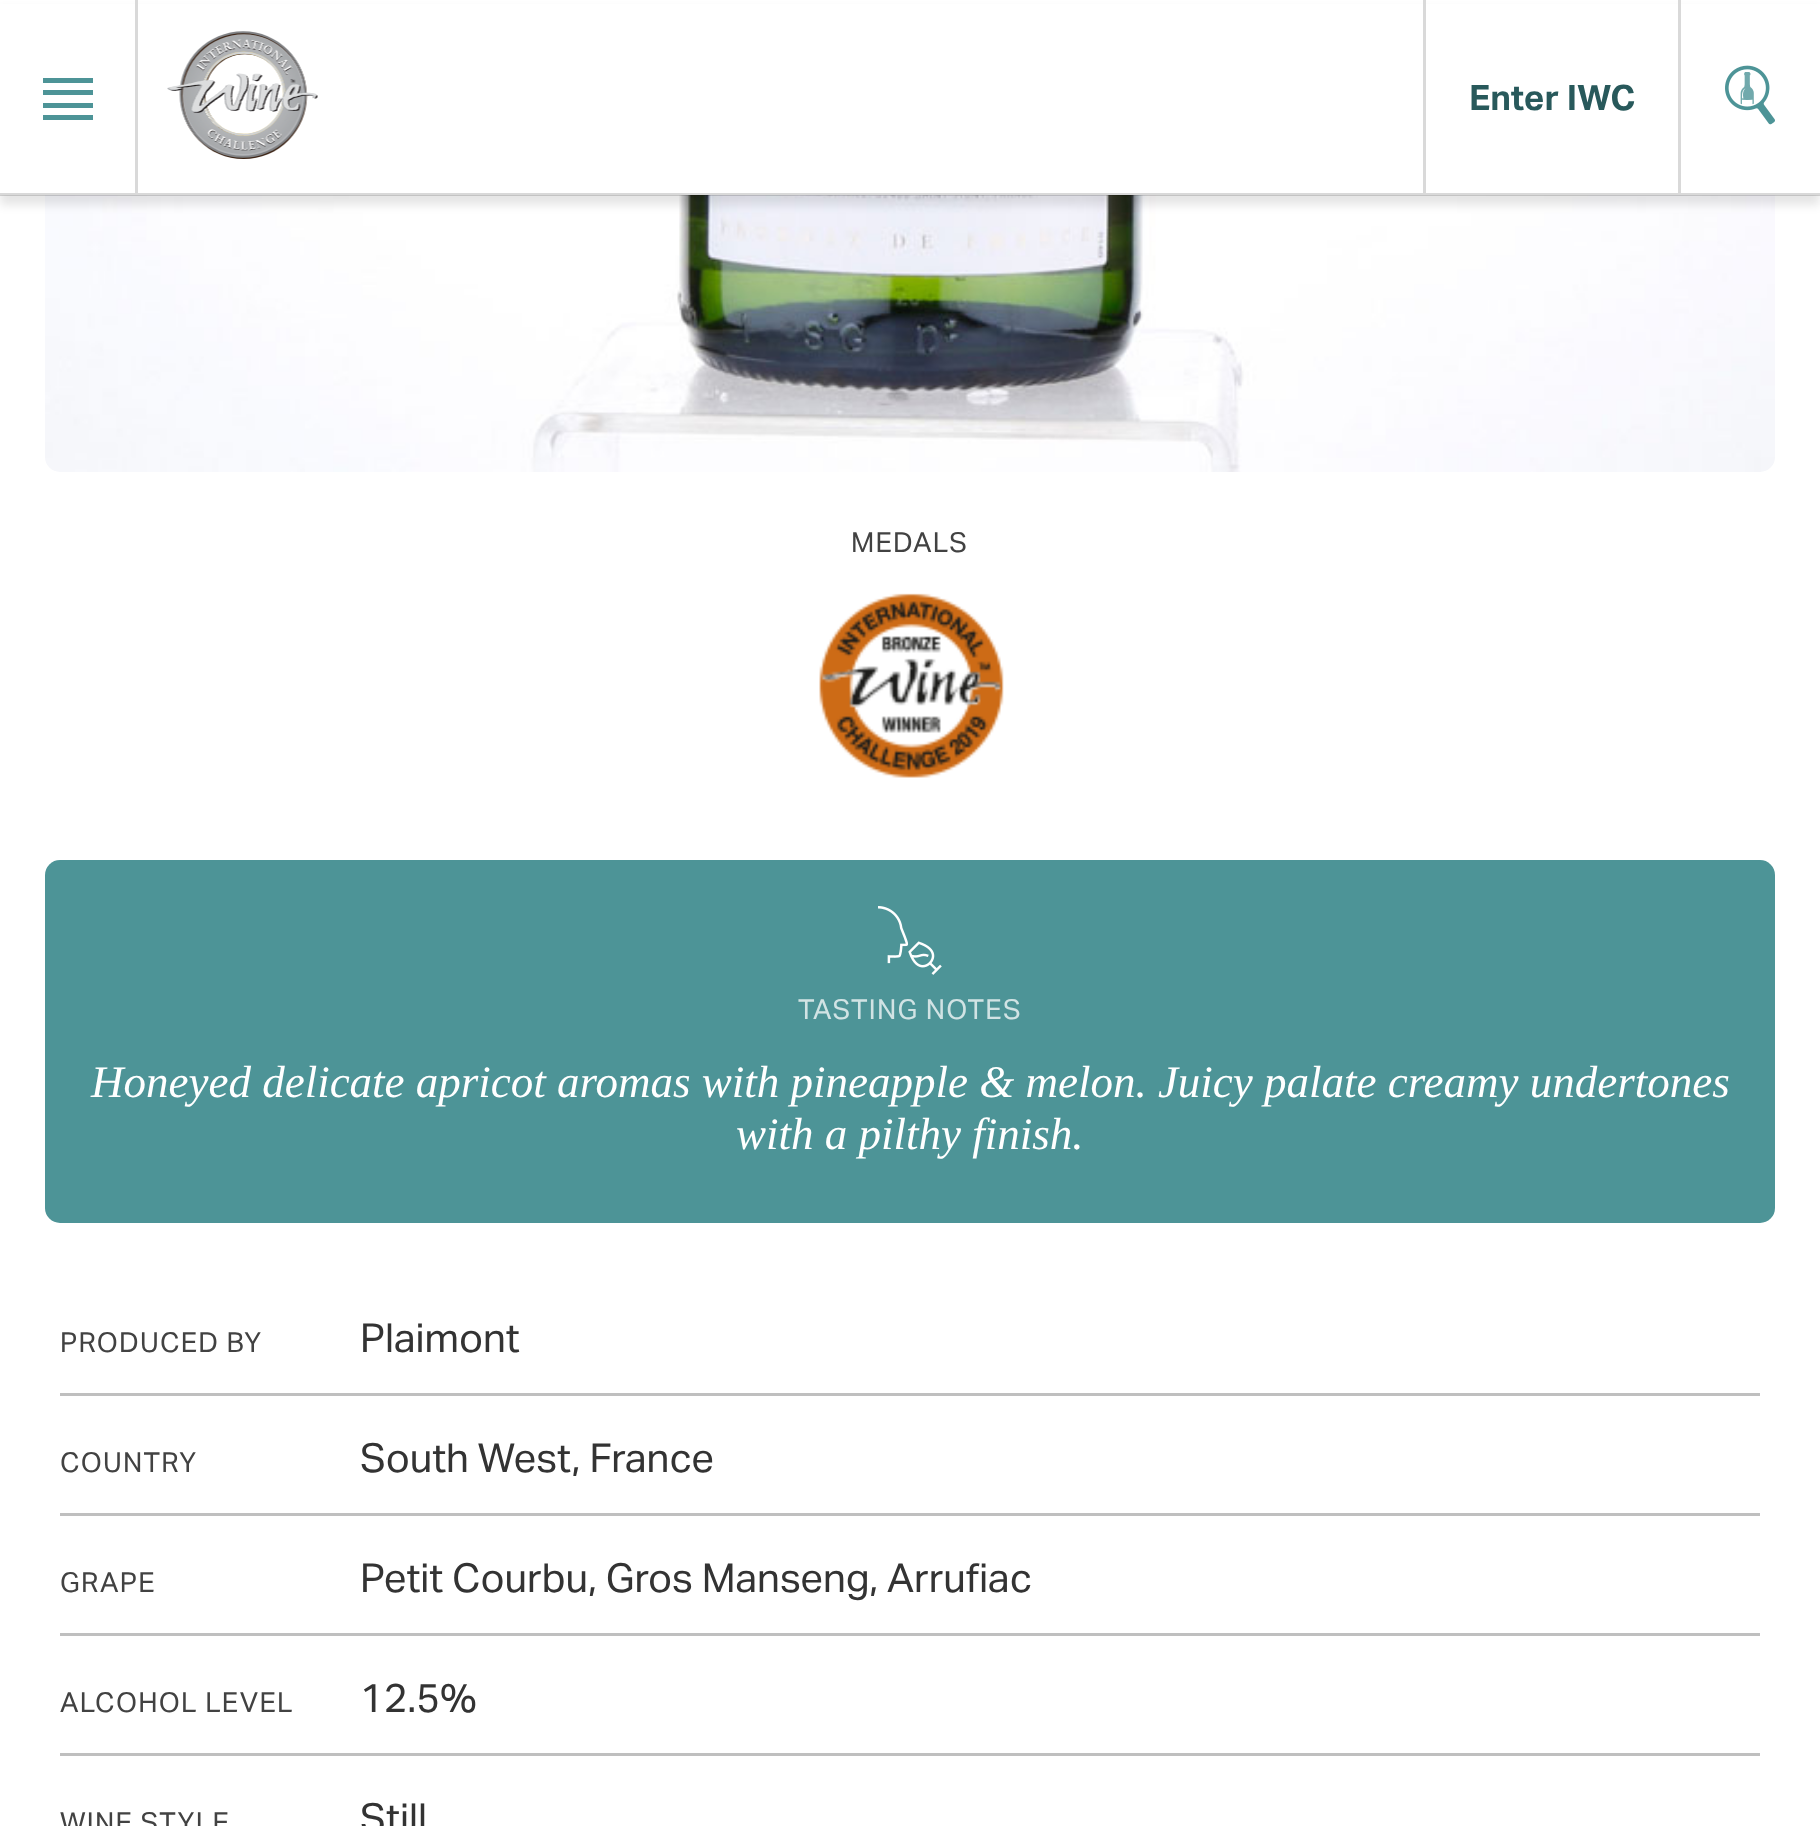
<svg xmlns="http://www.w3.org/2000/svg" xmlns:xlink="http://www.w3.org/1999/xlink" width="1820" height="1826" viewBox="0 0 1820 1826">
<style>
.cls-1{font:bold 35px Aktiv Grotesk;fill:#28595b}
.cls-2{font:27.5px Aktiv Grotesk;letter-spacing:1.25px;fill:#424242}
.cls-3{font:27.5px Aktiv Grotesk;letter-spacing:1.25px;fill:#d1e3e4}
.cls-4{font:italic 45px Liberation Serif;fill:#ffffff}
.cls-5{font:40px Aktiv Grotesk;fill:#333333}
</style>
<rect width="100%" height="100%" fill="#ffffff"/>
<image xlink:href="image2.png" x="45" y="195" width="1730" height="277"/>
<rect fill="#000000" fill-opacity="0.1" filter="blur(5px)" x="0" y="10" width="1820" height="195"/>
<rect fill="#ffffff" x="0" y="4" width="1820" height="191"/>
<rect fill="#000000" fill-opacity="0.15" x="0" y="193" width="1820" height="3"/>
<rect fill="#d9d9d9" x="135" y="0" width="3" height="193"/>
<rect fill="#4d9497" x="43" y="78" width="50" height="5"/>
<rect fill="#4d9497" x="43" y="90" width="50" height="5"/>
<rect fill="#4d9497" x="43" y="103" width="50" height="5"/>
<rect fill="#4d9497" x="43" y="115" width="50" height="5"/>
<image xlink:href="image0.png" x="167" y="31" width="151" height="128"/>
<rect fill="#d9d9d9" x="1423" y="0" width="3" height="193"/>
<rect fill="#d9d9d9" x="1678" y="0" width="3" height="193"/>
<image xlink:href="image1.png" x="1725" y="65" width="50" height="60"/>
<image xlink:href="image3.png" x="819" y="593" width="185" height="185"/>
<rect fill="#4d9497" x="45" y="860" width="1730" height="363" rx="15"/>
<image xlink:href="image4.png" x="878" y="906" width="64" height="69"/>
<rect fill="#bfbfbf" x="60" y="1393" width="1700" height="3"/>
<rect fill="#bfbfbf" x="60" y="1513" width="1700" height="3"/>
<rect fill="#bfbfbf" x="60" y="1633" width="1700" height="3"/>
<rect fill="#bfbfbf" x="60" y="1753" width="1700" height="3"/>
<text class="cls-1" x="1469" y="110">Enter IWC</text>
<text class="cls-2" x="851" y="552">MEDALS</text>
<text class="cls-3" x="798" y="1019">TASTING NOTES</text>
<text class="cls-4" x="91" y="1097">Honeyed delicate apricot aromas with pineapple &amp; melon. Juicy palate creamy undertones</text>
<text class="cls-4" x="736" y="1149">with a pilthy finish.</text>
<text class="cls-2" x="60" y="1352">PRODUCED BY</text>
<text class="cls-5" x="360" y="1352">Plaimont</text>
<text class="cls-2" x="60" y="1472">COUNTRY</text>
<text class="cls-5" x="360" y="1472">South West, France</text>
<text class="cls-2" x="60" y="1592">GRAPE</text>
<text class="cls-5" x="360" y="1592">Petit Courbu, Gros Manseng, Arrufiac</text>
<text class="cls-2" x="60" y="1712">ALCOHOL LEVEL</text>
<text class="cls-5" x="360" y="1712">12.5%</text>
<text class="cls-2" x="60" y="1832">WINE STYLE</text>
<text class="cls-5" x="360" y="1832">Still</text>
</svg>
